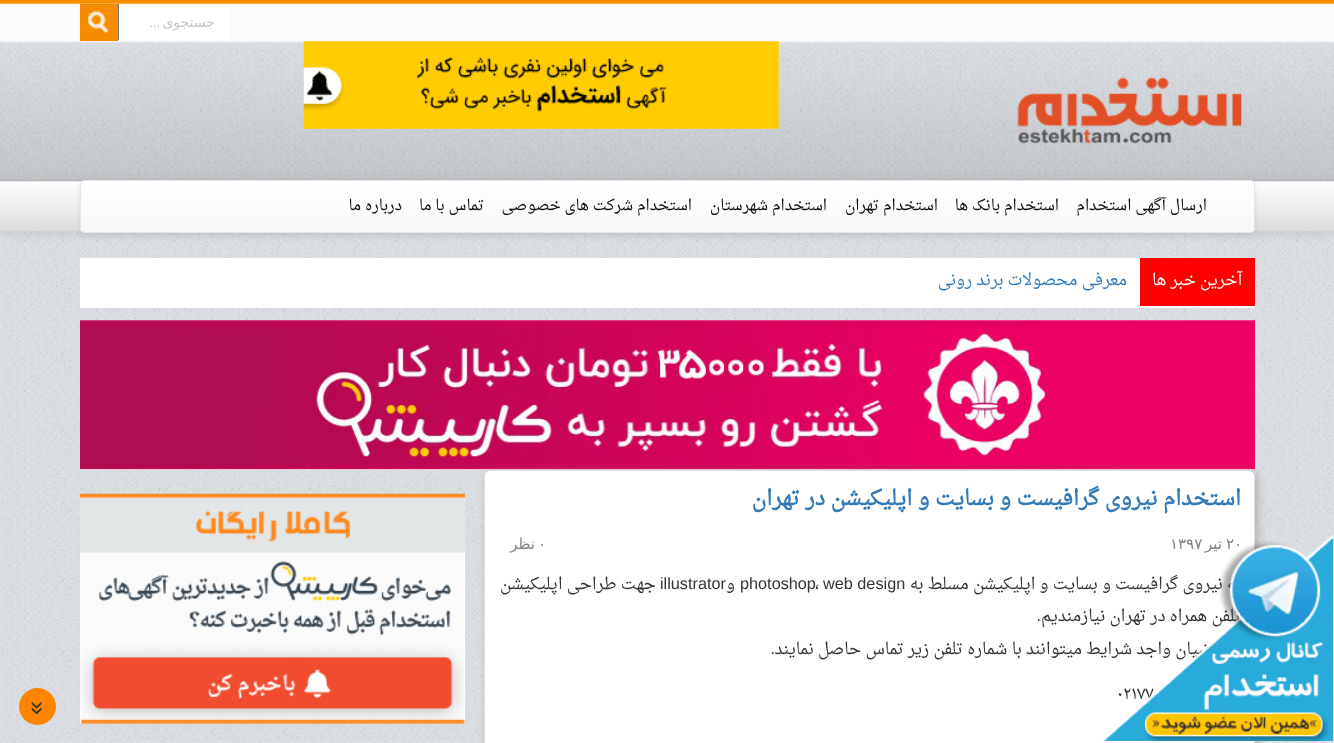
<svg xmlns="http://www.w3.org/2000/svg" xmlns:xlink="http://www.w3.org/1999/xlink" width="1334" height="743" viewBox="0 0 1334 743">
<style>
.cls-1{font:14px DejaVu Sans;direction:rtl;fill:#c5c5c5}
.cls-2{font:14px Liberation Serif;direction:rtl;fill:#c5c5c5}
.cls-3{font:15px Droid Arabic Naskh;direction:rtl;fill:#0e0d0c}
.cls-4{font:16.25px Droid Arabic Naskh;direction:rtl;fill:#ffffff}
.cls-5{font:16.25px Droid Arabic Naskh;direction:rtl;fill:#337ab7}
.cls-6{font:bold 21.25px Droid Arabic Naskh;direction:rtl;fill:#337ab7}
.cls-7{font:15px DejaVu Sans;fill:#808080}
.cls-8{font:15px DejaVu Sans;direction:rtl;fill:#808080}
.cls-9{font:16.25px Droid Arabic Naskh;direction:rtl;fill:#333333}
.cls-10{font:16.25px Liberation Sans;fill:#333333}
.cls-11{font:16.25px Droid Arabic Naskh;fill:#333333}
.cls-12{font:16.25px Liberation Sans;direction:rtl;fill:#333333}
.cls-13{font:25px Liberation Sans;fill:#333333}
</style>
<defs>
<clipPath id="clip1"><rect x="80" y="180" width="1175" height="53" rx="5"/></clipPath>
<linearGradient id="g1" gradientUnits="userSpaceOnUse" x1="668" y1="181" x2="668" y2="231"><stop offset="0" stop-color="#ffffff"/><stop offset="1" stop-color="#f8f8f8"/></linearGradient>
</defs>
<rect width="100%" height="100%" fill="#dce2e7"/>
<image xlink:href="image0.png" x="0" y="231" width="1334" height="512"/>
<rect fill="#000000" fill-opacity="0.1" filter="blur(6px)" x="0" y="1" width="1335" height="232"/>
<image xlink:href="image1.png" x="0" y="0" width="1334" height="232"/>
<rect fill="#ffffff" x="119" y="4" width="111" height="36"/>
<rect fill="#767676" x="118" y="4" width="1" height="36"/>
<rect fill="#f88c00" x="80" y="4" width="38" height="37"/>
<image xlink:href="image2.png" x="88" y="11" width="22" height="23"/>
<image xlink:href="image3.png" x="1017" y="77" width="225" height="67"/>
<image xlink:href="image4.png" x="303" y="41" width="476" height="88"/>
<rect fill="#000000" fill-opacity="0.07" filter="blur(3px)" x="80" y="181" width="1175" height="53" rx="5"/>
<rect fill="#f8f8f8" x="80" y="180" width="1175" height="53" rx="5"/>
<g clip-path="url(#clip1)">
<rect fill="url(#g1)" x="80" y="181" width="1175" height="50"/>
</g>
<rect fill="none" stroke="#e7e7e7" x="80.5" y="180.5" width="1174" height="52" rx="4.5"/>
<rect fill="#ffffff" x="80" y="258" width="1175" height="50"/>
<rect fill="#ff0000" x="1140" y="258" width="115" height="48"/>
<image xlink:href="image5.png" x="80" y="320" width="1175" height="150"/>
<rect fill="#999999" fill-opacity="0.6" filter="blur(4.5px)" x="486" y="473" width="772" height="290" rx="6"/>
<path fill="#ffffff" d="M490 471H1249C1252 471 1254 473 1254 476V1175C1254 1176 1252 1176 1249 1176H490C487 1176 485 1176 485 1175V476C485 473 487 471 490 471Z"/>
<path fill="#dddddd" d="M490 470C488 470 487 471 486 472V473C487 472 488 471 490 471H1249C1250 471 1252 472 1253 472C1252 471 1250 470 1249 470Z"/>
<path fill="#dddddd" d="M1255 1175V476C1255 474 1254 473 1253 472C1254 473 1254 474 1254 476V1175V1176V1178Z"/>
<path fill="#dddddd" d="M486 472C485 473 484 475 484 476V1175L485 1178V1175V476C485 475 485 473 486 473Z"/>
<image xlink:href="image6.png" x="80" y="493" width="385" height="231"/>
<circle fill="#ff8500" cx="37.5" cy="706.5" r="18.5"/>
<text class="cls-1" x="215" y="27">جستجوی</text>
<text class="cls-2" x="160" y="27">...</text>
<text class="cls-3" x="1207" y="210">ارسال آگهی استخدام</text>
<text class="cls-3" x="1059" y="210">استخدام بانک ها</text>
<text class="cls-3" x="938" y="210">استخدام تهران</text>
<text class="cls-3" x="827" y="210">استخدام شهرستان</text>
<text class="cls-3" x="692" y="210">استخدام شرکت های خصوصی</text>
<text class="cls-3" x="484" y="210">تماس با ما</text>
<text class="cls-3" x="402" y="210">درباره ما</text>
<text class="cls-4" x="1242" y="285">آخرین خبر ها</text>
<text class="cls-5" x="1127" y="285">معرفی محصولات برند رونی</text>
<text class="cls-6" x="1241" y="505">استخدام نیروی گرافیست و بسایت و اپلیکیشن در تهران</text>
<text class="cls-7" x="1226" y="549">۲۰</text>
<text class="cls-8" x="1222" y="549">تیر</text>
<text class="cls-7" x="1170" y="549">۱۳۹۷</text>
<text class="cls-7" x="538" y="549">۰</text>
<text class="cls-8" x="535" y="549">نظر</text>
<text class="cls-9" x="1241" y="589">به نیروی گرافیست و بسایت و اپلیکیشن مسلط به</text>
<text class="cls-10" x="823" y="589">web design</text>
<text class="cls-11" x="815" y="589">،</text>
<text class="cls-10" x="740" y="589">photoshop</text>
<text class="cls-9" x="735" y="589">و</text>
<text class="cls-10" x="660" y="589">illustrator</text>
<text class="cls-9" x="656" y="589">جهت طراحی اپلیکیشن</text>
<text class="cls-9" x="1241" y="621">تلفن همراه در تهران نیازمندیم</text>
<text class="cls-12" x="1041" y="621">.</text>
<text class="cls-9" x="1241" y="654">متقاضیان واجد شرایط میتوانند با شماره تلفن زیر تماس حاصل نمایند</text>
<text class="cls-12" x="775" y="654">.</text>
<text class="cls-11" x="1117" y="699">۰۲۱۷۷</text>
<image xlink:href="image7.png" x="1103" y="535" width="230" height="206"/>
<text class="cls-13" x="30" y="701" transform="rotate(90 30 701)">»</text>
</svg>
